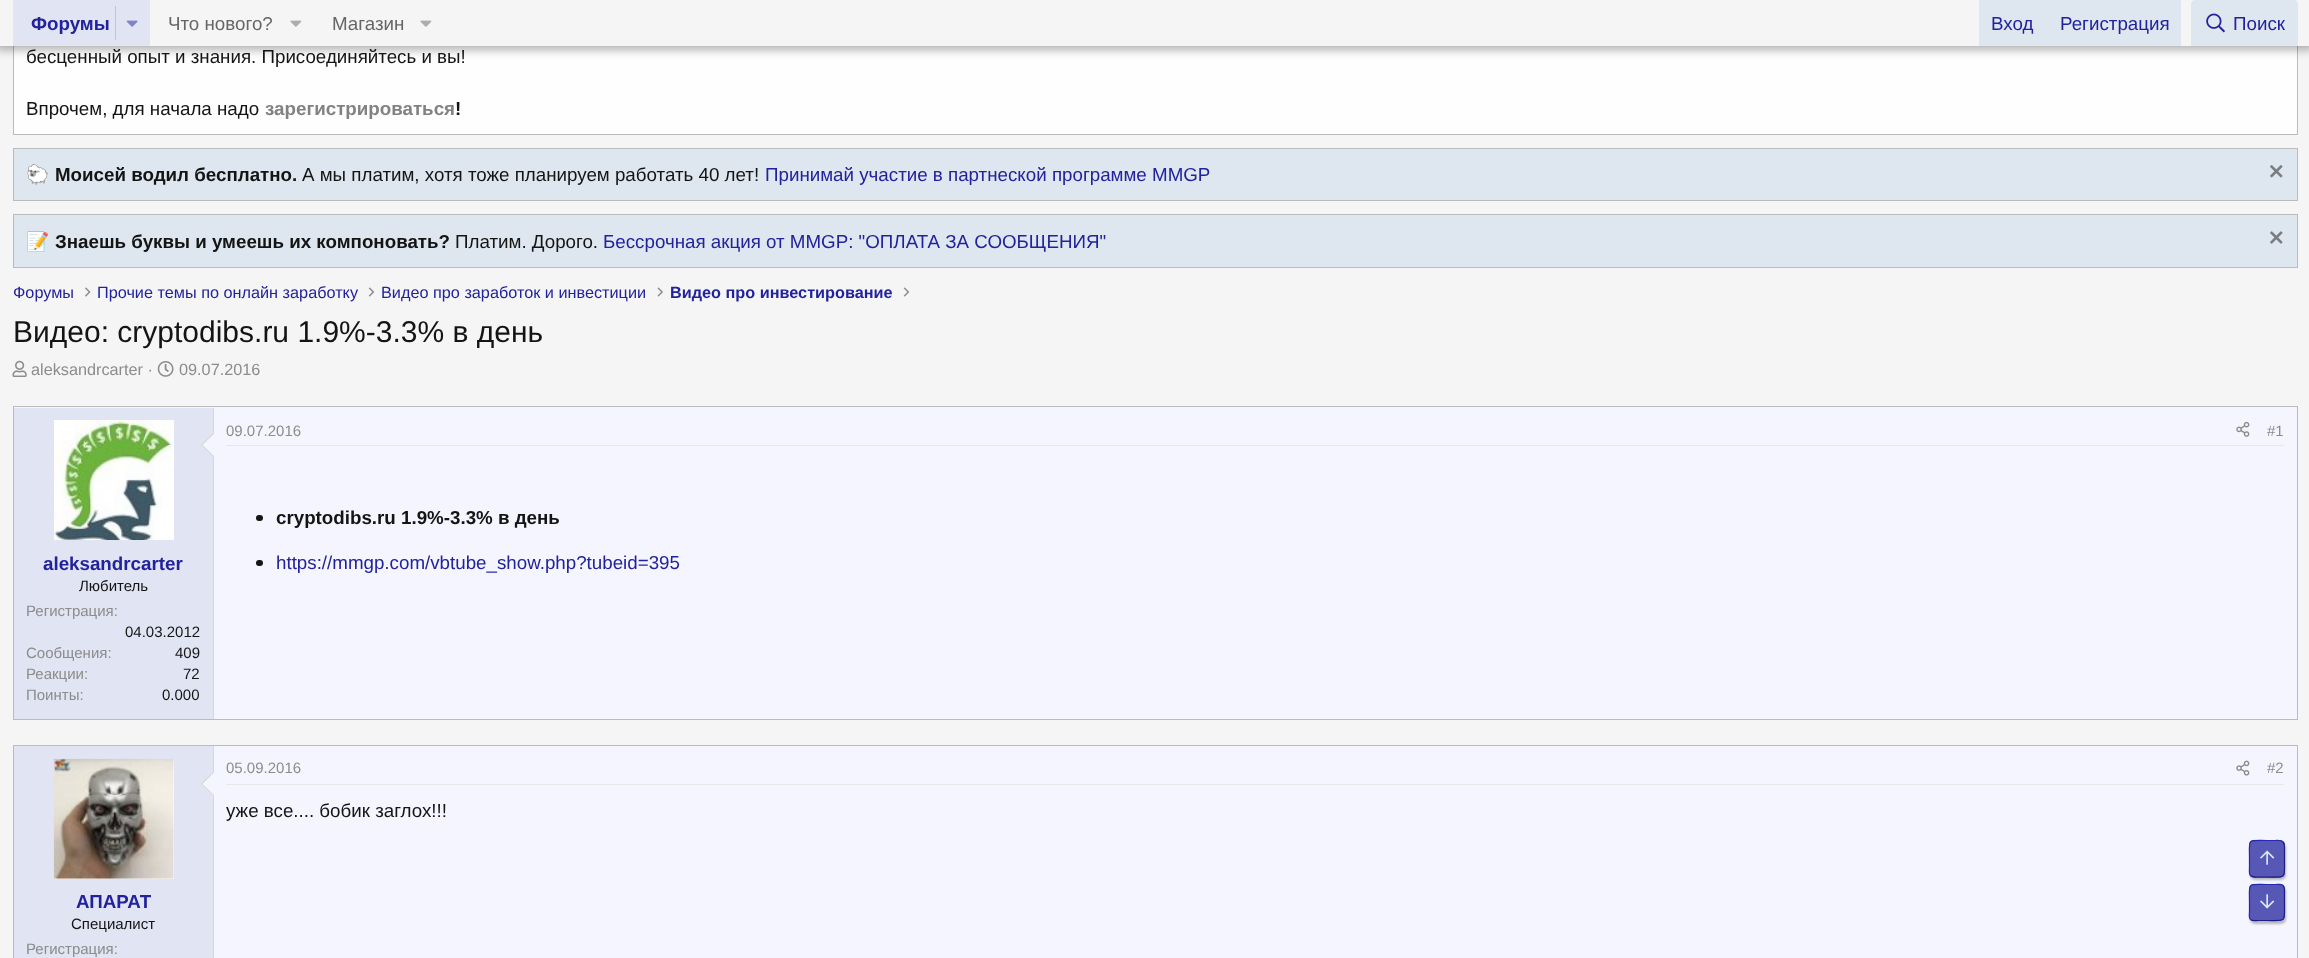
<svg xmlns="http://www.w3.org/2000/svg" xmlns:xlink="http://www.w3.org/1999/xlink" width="2309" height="958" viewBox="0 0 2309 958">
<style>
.cls-1{font:bold 18.75px Liberation Sans;fill:#22229c}
.cls-2{font:18.75px Liberation Sans;fill:#666666}
.cls-3{font:18.75px Liberation Sans;fill:#22229c}
.cls-4{font:18.75px Liberation Sans;fill:#141414}
.cls-5{font:bold 18.75px Liberation Sans;fill:#828282}
.cls-6{font:bold 18.75px Liberation Sans;fill:#141414}
.cls-7{font:18.75px Noto Color Emoji;fill:#141414}
.cls-8{font:16.25px Liberation Sans;fill:#22229c}
.cls-9{font:bold 16.25px Liberation Sans;fill:#22229c}
.cls-10{font:30px Liberation Sans;fill:#141414}
.cls-11{font:16.25px Liberation Sans;fill:#8c8c8c}
.cls-12{font:15px Liberation Sans;fill:#8c8c8c}
.cls-13{font:15px Liberation Sans;fill:#141414}
</style>
<defs>
<clipPath id="clip1"><path d="M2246 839H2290V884H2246ZM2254 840H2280C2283 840 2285 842 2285 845V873C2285 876 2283 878 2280 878H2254C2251 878 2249 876 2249 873V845C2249 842 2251 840 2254 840Z" clip-rule="evenodd"/></clipPath>
<clipPath id="clip2"><path d="M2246 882H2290V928H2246ZM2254 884H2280C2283 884 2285 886 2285 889V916C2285 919 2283 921 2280 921H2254C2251 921 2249 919 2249 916V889C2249 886 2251 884 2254 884Z" clip-rule="evenodd"/></clipPath>
</defs>
<rect width="100%" height="100%" fill="#f5f5f5"/>
<rect fill="#fefefe" x="14" y="46" width="2283" height="88"/>
<rect fill="none" stroke="#bbbbbb" x="13.5" y="-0.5" width="2284" height="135"/>
<rect fill="#000000" fill-opacity="0.3" filter="blur(5px)" x="-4" y="-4" width="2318" height="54"/>
<rect fill="#f5f5f5" x="0" y="0" width="2309" height="46"/>
<rect fill="#e1e4f2" x="13" y="0" width="137" height="46"/>
<rect fill="#c0c2e3" x="115" y="6" width="1" height="34"/>
<image xlink:href="image0.png" x="126" y="20" width="12" height="7"/>
<image xlink:href="image1.png" x="290" y="20" width="12" height="7"/>
<image xlink:href="image1.png" x="420" y="20" width="12" height="7"/>
<rect fill="#dee7ef" x="1979" y="0" width="202" height="46"/>
<path fill="#dee7ef" d="M2196 0H2293C2296 0 2298 2 2298 5V46H2191V5C2191 2 2193 0 2196 0Z"/>
<image xlink:href="image2.png" x="2206" y="13" width="19" height="20"/>
<rect fill="#dee7ef" stroke="#bbbbbb" x="13.5" y="148.5" width="2284" height="52"/>
<image xlink:href="image3.png" x="2270" y="165" width="13" height="13"/>
<rect fill="#dee7ef" stroke="#bbbbbb" x="13.5" y="214.5" width="2284" height="53"/>
<image xlink:href="image4.png" x="2270" y="231" width="13" height="13"/>
<image xlink:href="image5.png" x="85" y="287" width="6" height="10"/>
<image xlink:href="image6.png" x="368" y="287" width="7" height="10"/>
<image xlink:href="image7.png" x="657" y="287" width="6" height="10"/>
<image xlink:href="image6.png" x="903" y="287" width="7" height="10"/>
<image xlink:href="image8.png" x="12" y="360" width="15" height="17"/>
<image xlink:href="image9.png" x="157" y="361" width="17" height="16"/>
<rect fill="#f5f5ff" stroke="#bbbbbb" x="13.5" y="406.5" width="2284" height="313"/>
<rect fill="#e7e7e7" x="226" y="445" width="2058" height="1"/>
<image xlink:href="image10.png" x="2236" y="421" width="14" height="16"/>
<rect fill="#141414" x="256" y="515" width="7" height="6" rx="3"/>
<rect fill="#141414" x="256" y="560" width="7" height="6" rx="3"/>
<rect fill="#e1e4f2" x="14" y="408" width="199" height="311"/>
<rect fill="#d8d8d8" x="213" y="408" width="1" height="311"/>
<rect fill="#fefefe" x="173" y="420" width="1" height="120"/>
<image xlink:href="image11.png" x="54" y="420" width="120" height="120"/>
<path fill="#d8d8d8" d="M214 432.5V457.5L201 445Z"/>
<path fill="#f5f5ff" d="M214 434V456L202.5 445Z"/>
<rect fill="#f5f5ff" x="214" y="746" width="2083" height="212"/>
<rect fill="none" stroke="#bbbbbb" x="13.5" y="745.5" width="2284" height="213"/>
<rect fill="#e7e7e7" x="226" y="784" width="2058" height="1"/>
<image xlink:href="image12.png" x="2236" y="760" width="14" height="16"/>
<rect fill="#e1e4f2" x="14" y="746" width="199" height="212"/>
<rect fill="#d8d8d8" x="213" y="746" width="1" height="212"/>
<rect fill="#fefefe" x="54" y="759" width="120" height="120"/>
<image xlink:href="image13.png" x="53" y="758" width="121" height="121"/>
<path fill="#d8d8d8" d="M214 771V796L201 784Z"/>
<path fill="#f5f5ff" d="M214 772.5V795L202.5 784Z"/>
<g clip-path="url(#clip1)">
<rect fill="#000000" fill-opacity="0.25" filter="blur(1px)" x="2250" y="843" width="36" height="37" rx="5"/>
</g>
<rect fill="#22229c" fill-opacity="0.75" x="2249" y="840" width="36" height="38" rx="5"/>
<path fill="none" stroke="#1d1d87" stroke-width="1.2" d="M2283 842C2285 844 2284.5 847 2284.5 849.5V859C2284.5 879.5 2287 877 2267 877H2258C2256 877 2252.5 877.5 2250.5 875.5"/>
<path fill="none" stroke="#2727b1" stroke-width="1.2" d="M2250.5 875.5C2248.5 873.5 2249.5 870.5 2249.5 868V859C2249.5 838 2246.5 840.5 2267 840.5H2275.5C2278 840.5 2281 840 2283 842"/>
<image xlink:href="image14.png" x="2260" y="850" width="15" height="15"/>
<g clip-path="url(#clip2)">
<rect fill="#000000" fill-opacity="0.25" filter="blur(1px)" x="2250" y="886" width="36" height="38" rx="5"/>
</g>
<rect fill="#22229c" fill-opacity="0.75" x="2249" y="884" width="36" height="37" rx="5"/>
<path fill="none" stroke="#1d1d87" stroke-width="1.2" d="M2283 885.5C2285 887.5 2284.5 891 2284.5 893.5V902.5C2284.5 923 2287 920.5 2267 920.5H2258C2256 920.5 2252.5 921.5 2250.5 919.5"/>
<path fill="none" stroke="#2727b1" stroke-width="1.2" d="M2250.5 919.5C2248.5 917.5 2249.5 914 2249.5 911.5V902.5C2249.5 882 2246.5 884.5 2267 884.5H2275.5C2278 884.5 2281 883.5 2283 885.5"/>
<image xlink:href="image15.png" x="2260" y="894" width="15" height="15"/>
<text class="cls-1" x="31" y="30">Форумы</text>
<text class="cls-2" x="168" y="30">Что нового?</text>
<text class="cls-2" x="332" y="30">Магазин</text>
<text class="cls-3" x="1991" y="30">Вход</text>
<text class="cls-3" x="2060" y="30">Регистрация</text>
<text class="cls-3" x="2233" y="30">Поиск</text>
<text class="cls-4" x="26" y="63">бесценный опыт и знания. Присоединяйтесь и вы!</text>
<text class="cls-4" x="26" y="115">Впрочем, для начала надо</text>
<text class="cls-5" x="265" y="115">зарегистрироваться</text>
<text class="cls-6" x="455" y="115">!</text>
<text class="cls-7" x="26" y="181">🐑</text>
<text class="cls-6" x="55" y="181">Моисей водил бесплатно.</text>
<text class="cls-4" x="302" y="181">А мы платим, хотя тоже планируем работать 40 лет!</text>
<text class="cls-3" x="765" y="181">Принимай участие в партнеской программе MMGP</text>
<text class="cls-7" x="26" y="248">📝</text>
<text class="cls-6" x="55" y="248">Знаешь буквы и умеешь их компоновать?</text>
<text class="cls-4" x="455" y="248">Платим. Дорого.</text>
<text class="cls-3" x="603" y="248">Бессрочная акция от MMGP: "ОПЛАТА ЗА СООБЩЕНИЯ"</text>
<text class="cls-8" x="13" y="298">Форумы</text>
<text class="cls-8" x="97" y="298">Прочие темы по онлайн заработку</text>
<text class="cls-8" x="381" y="298">Видео про заработок и инвестиции</text>
<text class="cls-9" x="670" y="298">Видео про инвестирование</text>
<text class="cls-10" x="13" y="342">Видео: cryptodibs.ru 1.9%-3.3% в день</text>
<text class="cls-11" x="31" y="375">aleksandrcarter ·</text>
<text class="cls-11" x="179" y="375">09.07.2016</text>
<text class="cls-12" x="226" y="436">09.07.2016</text>
<text class="cls-12" x="2267" y="436">#1</text>
<text class="cls-6" x="276" y="524">cryptodibs.ru 1.9%-3.3% в день</text>
<text class="cls-3" x="276" y="569">https://mmgp.com/vbtube_show.php?tubeid=395</text>
<text class="cls-1" x="43" y="570">aleksandrcarter</text>
<text class="cls-13" x="79" y="591">Любитель</text>
<text class="cls-12" x="26" y="616">Регистрация:</text>
<text class="cls-13" x="125" y="637">04.03.2012</text>
<text class="cls-12" x="26" y="658">Сообщения:</text>
<text class="cls-13" x="175" y="658">409</text>
<text class="cls-12" x="26" y="679">Реакции:</text>
<text class="cls-13" x="183" y="679">72</text>
<text class="cls-12" x="26" y="700">Поинты:</text>
<text class="cls-13" x="162" y="700">0.000</text>
<text class="cls-12" x="226" y="773">05.09.2016</text>
<text class="cls-12" x="2267" y="773">#2</text>
<text class="cls-4" x="226" y="817">уже все.... бобик заглох!!!</text>
<text class="cls-1" x="76" y="908">АПАРАТ</text>
<text class="cls-13" x="71" y="929">Специалист</text>
<text class="cls-12" x="26" y="954">Регистрация:</text>
</svg>
